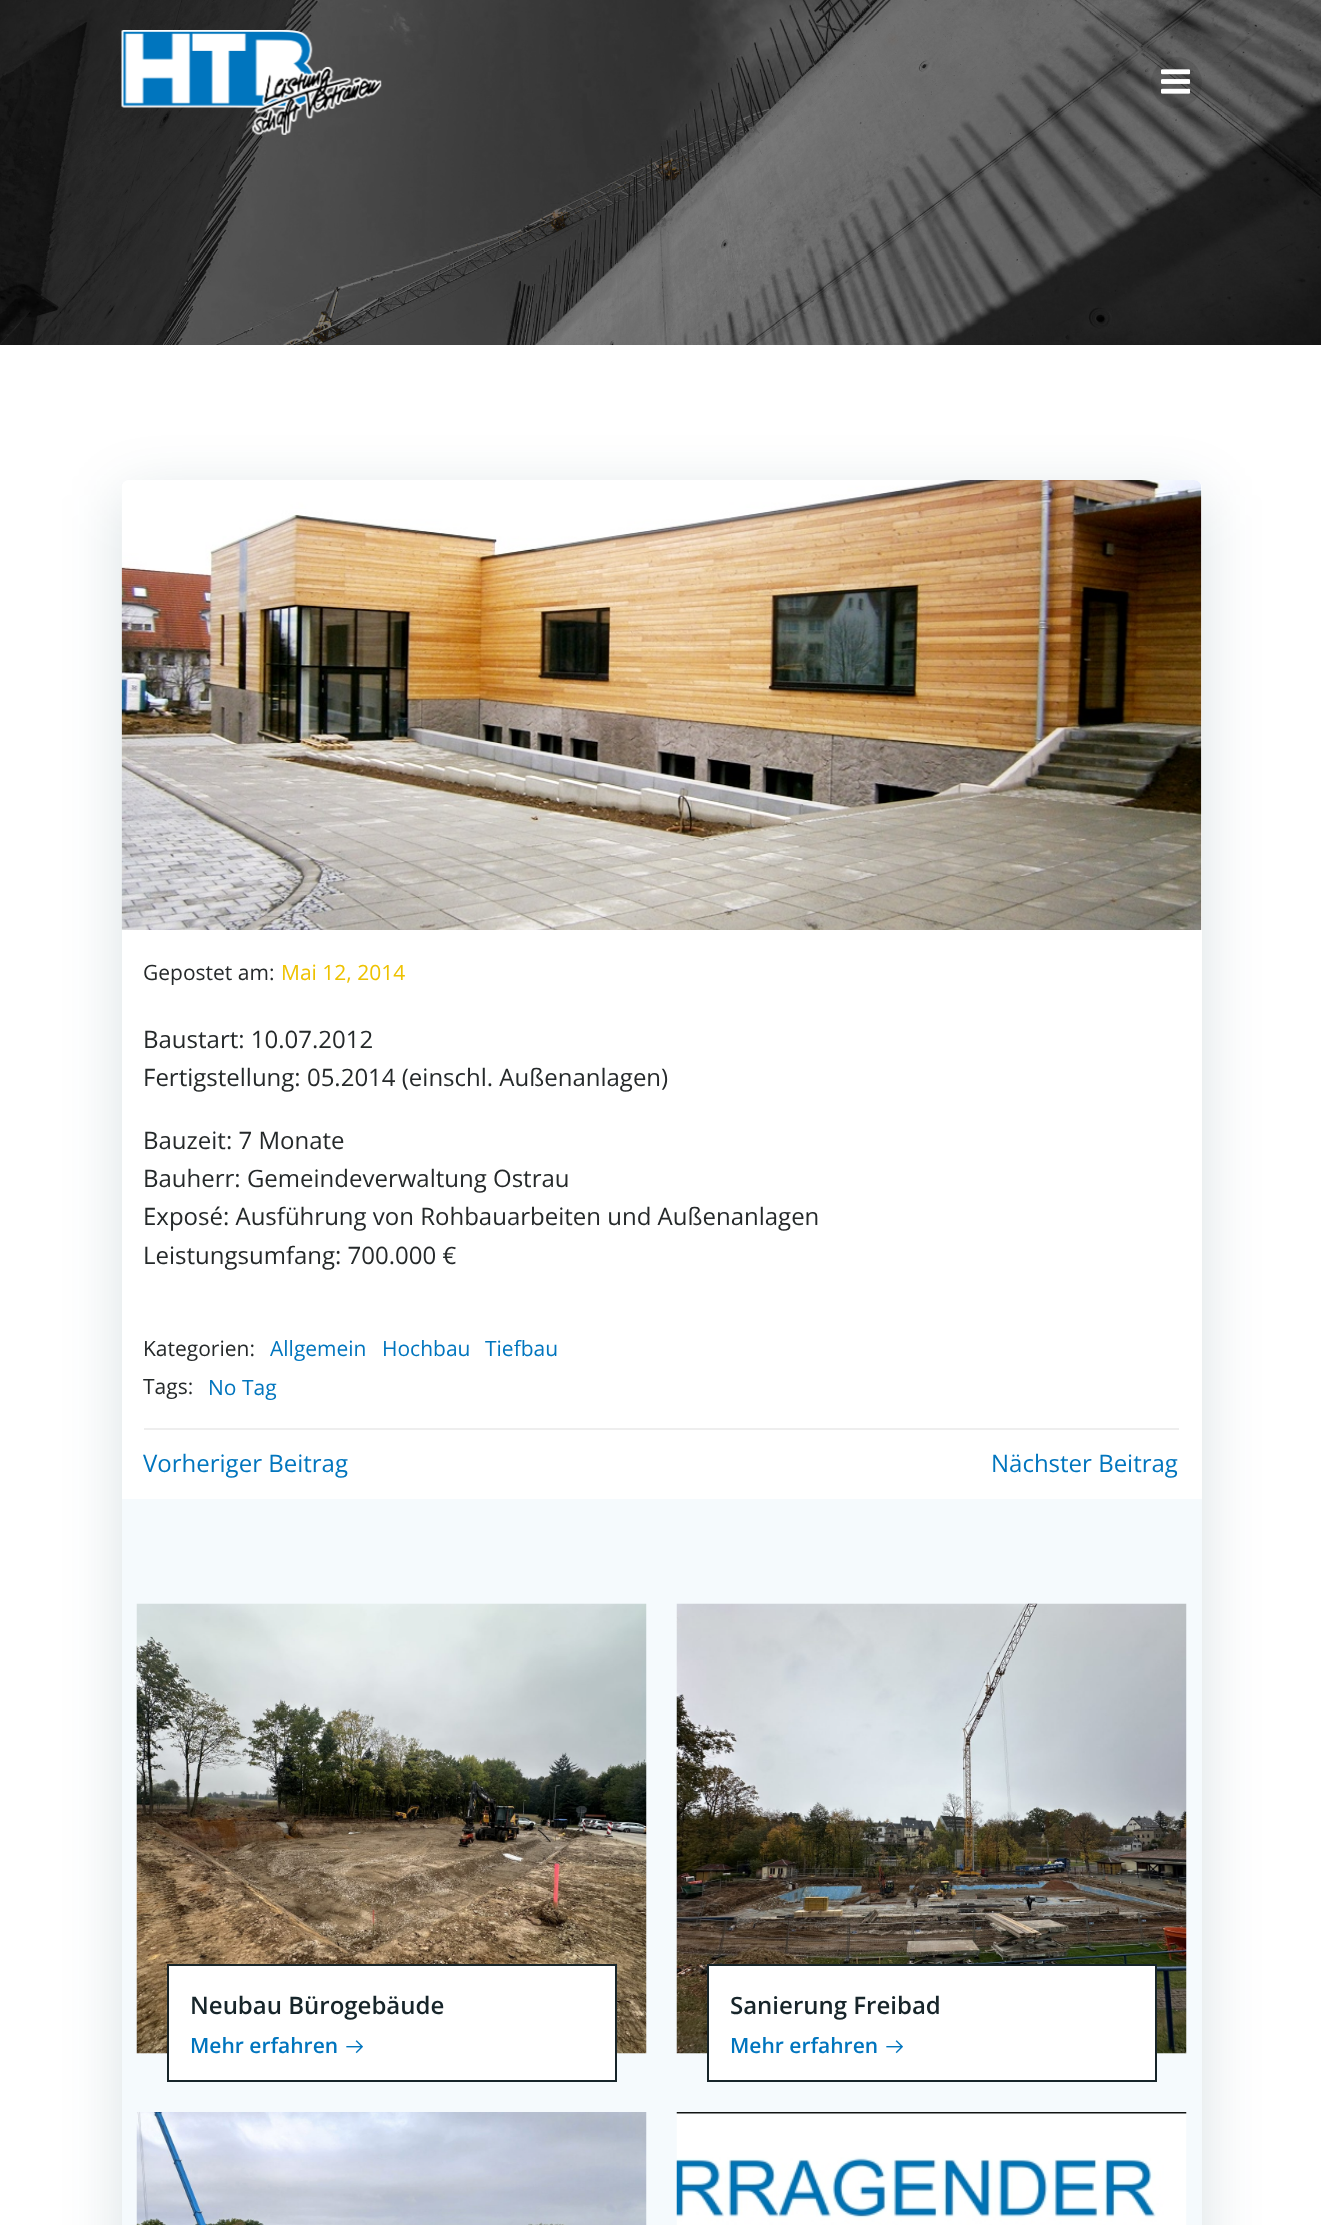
<svg xmlns="http://www.w3.org/2000/svg" xmlns:xlink="http://www.w3.org/1999/xlink" width="1321" height="2225" viewBox="0 0 1321 2225">
<style>
.cls-1{font:21px Open Sans;fill:#25292a}
.cls-2{font:21px Open Sans;fill:#eec200}
.cls-3{font:24px Open Sans;fill:#25292a}
.cls-4{font:21px Open Sans;fill:#0075be}
.cls-5{font:24px Open Sans;fill:#0075be}
.cls-6{font:600 24px Open Sans;fill:#17252a}
.cls-7{font:600 21px Open Sans;fill:#0075be}
</style>
<rect width="100%" height="100%" fill="#ffffff"/>
<image xlink:href="image0.png" x="0" y="0" width="1321" height="345"/>
<image xlink:href="image1.png" x="121" y="30" width="261" height="105"/>
<circle fill="#000000" fill-opacity="0.1" cx="1176.5" cy="82.5" r="25.5"/>
<image xlink:href="image2.png" x="1161" y="69" width="29" height="25"/>
<rect fill="#01334a" fill-opacity="0.15" filter="blur(30px)" x="122" y="495" width="1080" height="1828" rx="8"/>
<rect fill="#ffffff" x="122" y="480" width="1080" height="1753" rx="8"/>
<image xlink:href="image3.png" x="121" y="480" width="1081" height="450"/>
<rect fill="#eeeeee" x="144" y="1428" width="1035" height="2"/>
<rect fill="#f5fafd" x="122" y="1499" width="1080" height="726"/>
<image xlink:href="image4.png" x="136" y="1603" width="511" height="451"/>
<rect fill="#ffffff" stroke="#17252a" stroke-width="2" x="168" y="1965" width="448" height="116"/>
<image xlink:href="image5.png" x="346" y="2040" width="17" height="14"/>
<image xlink:href="image6.png" x="676" y="1603" width="511" height="451"/>
<rect fill="#ffffff" stroke="#17252a" stroke-width="2" x="708" y="1965" width="448" height="116"/>
<image xlink:href="image5.png" x="886" y="2040" width="17" height="14"/>
<image xlink:href="image7.png" x="136" y="2112" width="511" height="113"/>
<image xlink:href="image8.png" x="676" y="2112" width="511" height="113"/>
<text class="cls-1" x="143" y="980">Gepostet am:</text>
<text class="cls-2" x="281" y="980">Mai 12, 2014</text>
<text class="cls-3"><tspan x="143" y="1048">Baustart: 10.07.2012</tspan><tspan x="143" y="1086">Fertigstellung: 05.2014 (einschl. Außenanlagen)</tspan></text>
<text class="cls-3"><tspan x="143" y="1149">Bauzeit: 7 Monate</tspan><tspan x="143" y="1187">Bauherr: Gemeindeverwaltung Ostrau</tspan><tspan x="143" y="1225">Exposé: Ausführung von Rohbauarbeiten und Außenanlagen</tspan><tspan x="143" y="1264">Leistungsumfang: 700.000 €</tspan></text>
<text class="cls-1" x="143" y="1356">Kategorien:</text>
<text class="cls-4" x="270" y="1356">Allgemein</text>
<text class="cls-4" x="382" y="1356">Hochbau</text>
<text class="cls-4" x="485" y="1356">Tiefbau</text>
<text class="cls-1" x="143" y="1394">Tags:</text>
<text class="cls-4" x="208" y="1395">No Tag</text>
<text class="cls-5" x="143" y="1472">Vorheriger Beitrag</text>
<text class="cls-5" x="991" y="1472">Nächster Beitrag</text>
<text class="cls-6" x="190" y="2014">Neubau Bürogebäude</text>
<text class="cls-7" x="190" y="2053">Mehr erfahren</text>
<text class="cls-6" x="730" y="2014">Sanierung Freibad</text>
<text class="cls-7" x="730" y="2053">Mehr erfahren</text>
</svg>
